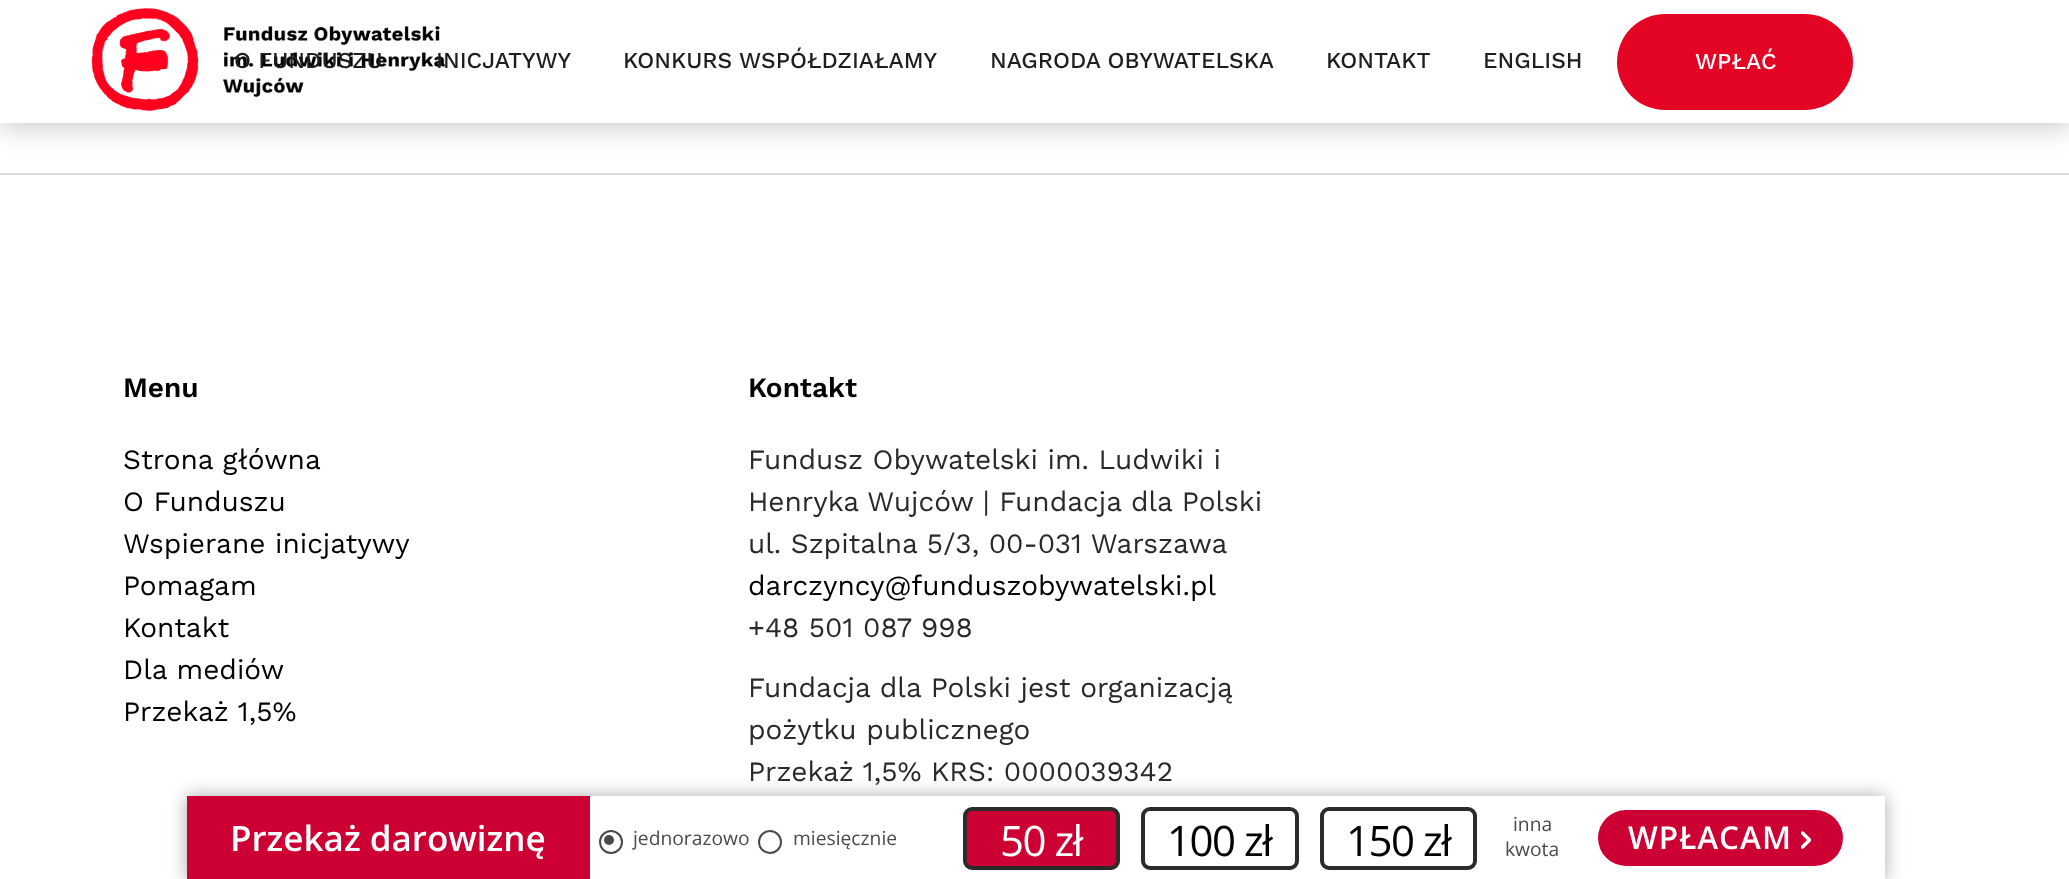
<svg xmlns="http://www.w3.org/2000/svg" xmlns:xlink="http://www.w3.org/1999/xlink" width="2069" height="879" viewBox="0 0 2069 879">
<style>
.cls-1{font:500 22.75px Work Sans;fill:#1e1e1e}
.cls-2{font:500 22.75px Work Sans;fill:#ffffff}
.cls-3{font:600 28px Work Sans;fill:#000000}
.cls-4{font:28px Work Sans;fill:#000000}
.cls-5{font:28px Work Sans;fill:#292929}
.cls-6{font:600 35px Open Sans;fill:#ffffff}
.cls-7{font:19.25px Open Sans;fill:#4a4a4a}
.cls-8{font:42px Open Sans;letter-spacing:-1.5px;fill:#ffffff}
.cls-9{font:42px Open Sans;letter-spacing:-1.5px;fill:#000000}
.cls-10{font:600 31.5px Open Sans;letter-spacing:1px;fill:#ffffff}
</style>
<defs>
<clipPath id="clip1"><path d="M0 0H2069V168H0ZM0 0H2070V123H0Z" clip-rule="evenodd"/></clipPath>
<clipPath id="clip2"><rect x="1801" y="831" width="10" height="18"/></clipPath>
</defs>
<rect width="100%" height="100%" fill="#ffffff"/>
<g clip-path="url(#clip1)">
<rect fill="#000000" fill-opacity="0.2" filter="blur(13px)" x="0" y="5" width="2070" height="123"/>
</g>
<image xlink:href="image0.png" x="91" y="8" width="355" height="104"/>
<rect fill="#e40524" x="1617" y="14" width="236" height="96" rx="48"/>
<rect fill="#dbdbdb" x="0" y="173" width="2069" height="2"/>
<rect fill="#aaaaaa" filter="blur(9px)" x="187" y="796" width="1698" height="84"/>
<rect fill="#ffffff" x="590" y="796" width="1295" height="83"/>
<rect fill="#cc0033" x="187" y="796" width="403" height="83"/>
<circle fill="none" stroke="#4a4a4a" stroke-width="2" cx="611" cy="842" r="11"/>
<circle fill="#4a4a4a" cx="609" cy="840" r="5"/>
<circle fill="none" stroke="#4a4a4a" stroke-width="2" cx="770" cy="842" r="11"/>
<rect fill="#cc0033" stroke="#2d2a2a" stroke-width="4" x="965" y="809" width="153" height="59" rx="7"/>
<rect fill="none" stroke="#2d2a2a" stroke-width="4" x="1143" y="809" width="154" height="59" rx="7"/>
<rect fill="none" stroke="#2d2a2a" stroke-width="4" x="1322" y="809" width="153" height="59" rx="7"/>
<rect fill="#cc0033" x="1598" y="810" width="245" height="56" rx="28"/>
<g clip-path="url(#clip2)">
<path fill="none" stroke="#ffffff" stroke-width="3.5" stroke-linecap="round" stroke-linejoin="round" d="M1802.5 833L1809.5 840L1802.5 847"/>
</g>
<text class="cls-1" x="234" y="68">O FUNDUSZU</text>
<text class="cls-1" x="436" y="68">INICJATYWY</text>
<text class="cls-1" x="623" y="68">KONKURS WSPÓŁDZIAŁAMY</text>
<text class="cls-1" x="990" y="68">NAGRODA OBYWATELSKA</text>
<text class="cls-1" x="1326" y="68">KONTAKT</text>
<text class="cls-1" x="1483" y="68">ENGLISH</text>
<text class="cls-2" x="1695" y="69">WPŁAĆ</text>
<text class="cls-3" x="123" y="397">Menu</text>
<text class="cls-4"><tspan x="123" y="469">Strona główna</tspan><tspan x="123" y="511">O Funduszu</tspan><tspan x="123" y="553">Wspierane inicjatywy</tspan><tspan x="123" y="595">Pomagam</tspan><tspan x="123" y="637">Kontakt</tspan><tspan x="123" y="679">Dla mediów</tspan><tspan x="123" y="721">Przekaż 1,5%</tspan></text>
<text class="cls-3" x="748" y="397">Kontakt</text>
<text class="cls-5"><tspan x="748" y="469">Fundusz Obywatelski im. Ludwiki i</tspan><tspan x="748" y="511">Henryka Wujców | Fundacja dla Polski</tspan><tspan x="748" y="553">ul. Szpitalna 5/3, 00-031 Warszawa</tspan></text>
<text class="cls-4" x="748" y="595">darczyncy@funduszobywatelski.pl</text>
<text class="cls-5" x="748" y="637">+48 501 087 998</text>
<text class="cls-5"><tspan x="748" y="697">Fundacja dla Polski jest organizacją</tspan><tspan x="748" y="739">pożytku publicznego</tspan><tspan x="748" y="781">Przekaż 1,5% KRS: 0000039342</tspan></text>
<text class="cls-6" x="230" y="851">Przekaż darowiznę</text>
<text class="cls-7" x="633" y="845">jednorazowo</text>
<text class="cls-7" x="793" y="845">miesięcznie</text>
<text class="cls-8" x="1000" y="856">50 zł</text>
<text class="cls-9" x="1167" y="856">100 zł</text>
<text class="cls-9" x="1346" y="856">150 zł</text>
<text class="cls-7" x="1513" y="831">inna</text>
<text class="cls-7" x="1505" y="856">kwota</text>
<text class="cls-10" x="1628" y="849">WPŁACAM</text>
</svg>
